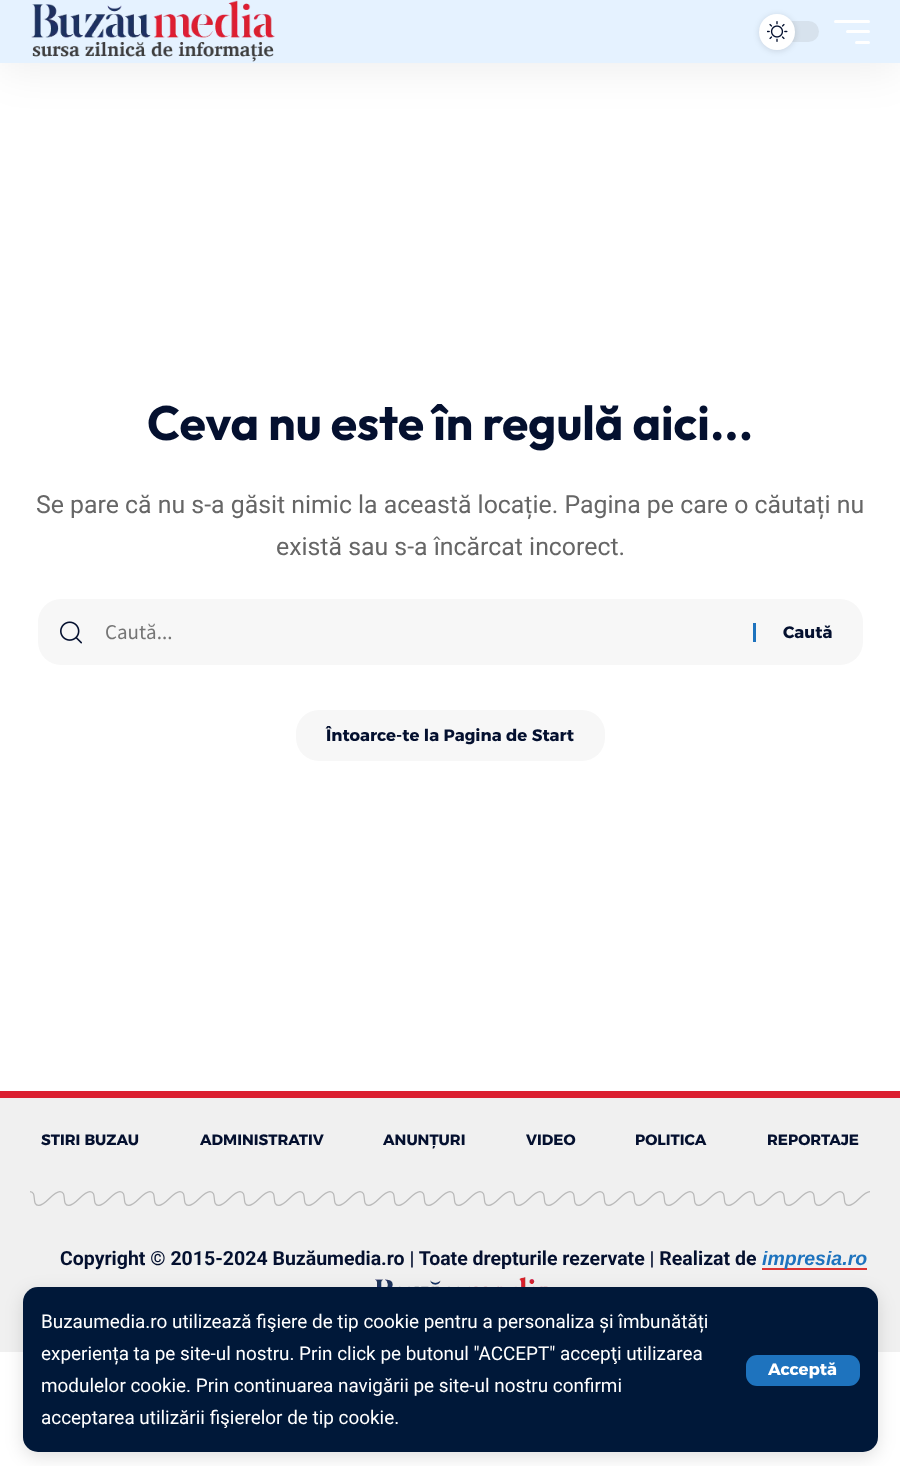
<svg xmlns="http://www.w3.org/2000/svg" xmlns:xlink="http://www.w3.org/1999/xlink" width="900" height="1466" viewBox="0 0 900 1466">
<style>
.cls-1{font:bold 48px Outfit;fill:#04102f}
.cls-2{font:24.85px Roboto;fill:#666666}
.cls-3{font:21px Source Sans Pro;fill:#757575}
.cls-4{font:bold 16.5px Alexandria;fill:#04102f}
.cls-5{font:bold 15px Alexandria;fill:#04102f}
.cls-6{font:bold 19.5px Roboto;fill:#04102f}
.cls-7{font:italic bold 19.5px Liberation Sans;fill:#1e73be}
.cls-8{font:18.9px Roboto;fill:#ffffff}
.cls-9{font:bold 16.5px Alexandria;fill:#ffffff}
</style>
<rect width="100%" height="100%" fill="#ffffff"/>
<rect fill="#f7f7f7" x="38" y="599" width="825" height="66" rx="23"/>
<image xlink:href="image0.png" x="60" y="621" width="22" height="23"/>
<rect fill="#1e73be" x="753" y="623" width="3" height="19"/>
<rect fill="#f7f7f7" x="296" y="710" width="309" height="51" rx="23"/>
<rect fill="#f0f0f0" x="0" y="1098" width="900" height="254"/>
<rect fill="#db1f30" x="0" y="1091" width="900" height="7"/>
<image xlink:href="image1.png" x="30" y="1191" width="840" height="15"/>
<rect fill="#dd3333" x="762" y="1268" width="105" height="2"/>
<image xlink:href="image2.png" x="375" y="1277" width="173" height="10"/>
<rect fill="#000000" fill-opacity="0.07" filter="blur(22.5px)" x="0" y="6" width="900" height="63"/>
<rect fill="#e5f2ff" x="0" y="0" width="900" height="63"/>
<image xlink:href="image3.png" x="31" y="0" width="244" height="62"/>
<rect fill="#d7e2ed" x="759" y="21" width="60" height="21" rx="10.5"/>
<rect fill="#000000" fill-opacity="0.12" filter="blur(3px)" x="759" y="15" width="36" height="36" rx="18"/>
<circle fill="#ffffff" cx="777" cy="32" r="18"/>
<image xlink:href="image4.png" x="767" y="21" width="21" height="21"/>
<rect fill="#ffffff" x="834" y="20" width="36" height="3" rx="1.5"/>
<rect fill="#ffffff" x="846" y="30" width="24" height="3" rx="1.5"/>
<rect fill="#ffffff" x="855" y="41" width="15" height="3" rx="1.5"/>
<rect fill="#000000" fill-opacity="0.12" filter="blur(9px)" x="23" y="1292" width="855" height="165" rx="15"/>
<rect fill="#001839" x="23" y="1287" width="855" height="165" rx="15"/>
<rect fill="#1e73be" x="746" y="1355" width="114" height="31" rx="11"/>
<text class="cls-1" x="147" y="440">Ceva nu este în regulă aici...</text>
<text class="cls-2" x="36" y="513">Se pare că nu s-a găsit nimic la această locație. Pagina pe care o căutați nu</text>
<text class="cls-2" x="276" y="555">există sau s-a încărcat incorect.</text>
<text class="cls-3" x="105" y="639">Caută...</text>
<text class="cls-4" x="783" y="638">Caută</text>
<text class="cls-4" x="326" y="741">Întoarce-te la Pagina de Start</text>
<text class="cls-5" x="41" y="1145">STIRI BUZAU</text>
<text class="cls-5" x="200" y="1145">ADMINISTRATIV</text>
<text class="cls-5" x="383" y="1145">ANUNȚURI</text>
<text class="cls-5" x="526" y="1145">VIDEO</text>
<text class="cls-5" x="635" y="1145">POLITICA</text>
<text class="cls-5" x="767" y="1145">REPORTAJE</text>
<text class="cls-6" x="60" y="1265">Copyright © 2015-2024 Buzăumedia.ro | Toate drepturile rezervate | Realizat de</text>
<text class="cls-7" x="762" y="1265">impresia.ro</text>
<text class="cls-8"><tspan x="41" y="1328">Buzaumedia.ro utilizează fişiere de tip cookie pentru a personaliza și îmbunătăți</tspan><tspan x="41" y="1360">experiența ta pe site-ul nostru. Prin click pe butonul "ACCEPT" accepţi utilizarea</tspan><tspan x="41" y="1392">modulelor cookie. Prin continuarea navigării pe site-ul nostru confirmi</tspan><tspan x="41" y="1424">acceptarea utilizării fişierelor de tip cookie.</tspan></text>
<text class="cls-9" x="768" y="1375">Acceptă</text>
</svg>
